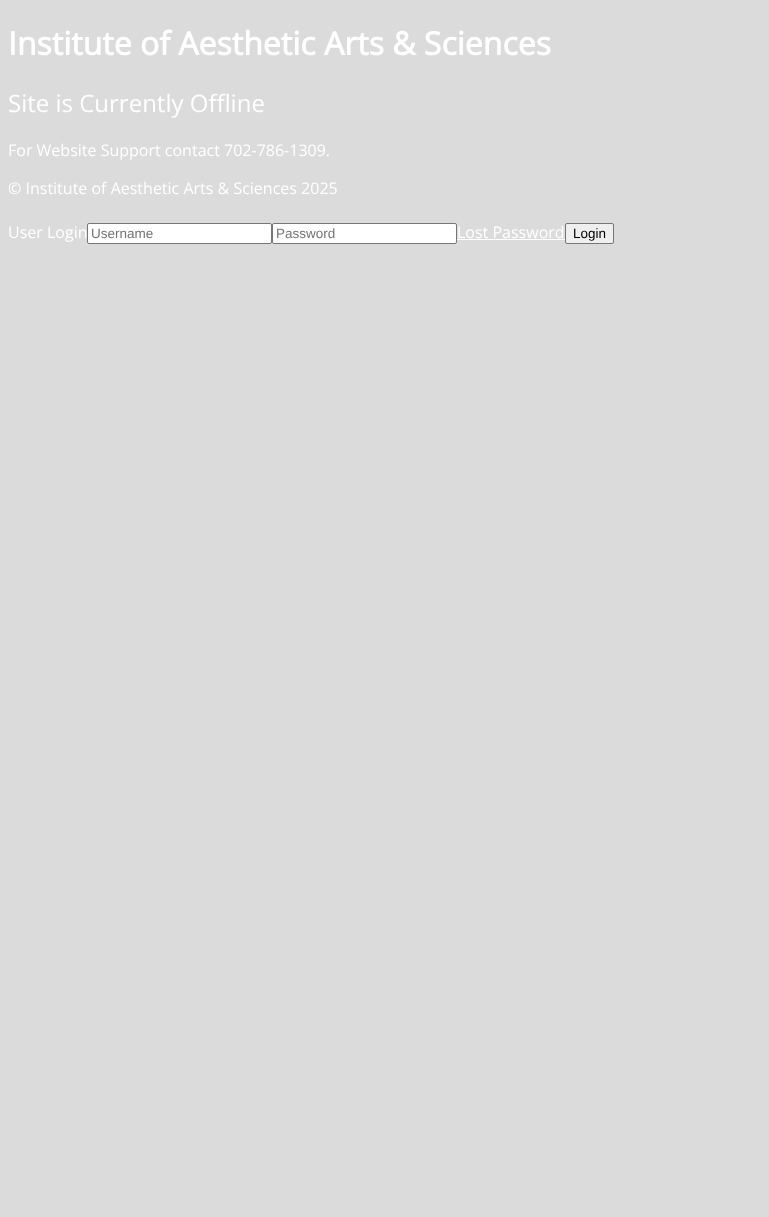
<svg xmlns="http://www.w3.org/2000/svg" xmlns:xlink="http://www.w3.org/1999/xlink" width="769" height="1217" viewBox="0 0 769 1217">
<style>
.cls-1{font:bold 32px Open Sans;fill:#ffffff}
.cls-2{font:24px Open Sans;fill:#ffffff}
.cls-3{font:16px Open Sans;fill:#ffffff}
.cls-4{font:13.5px Liberation Sans;fill:#757575}
.cls-5{font:13.5px Liberation Sans;fill:#000000}
</style>
<rect width="100%" height="100%" fill="#dbdbdb"/>
<rect fill="#ffffff" stroke="#767676" x="87.5" y="223.5" width="184" height="20" rx="1.5"/>
<rect fill="#ffffff" stroke="#767676" x="272.5" y="223.5" width="184" height="20" rx="1.5"/>
<rect fill="#ffffff" x="457" y="239" width="108" height="1"/>
<rect fill="#efefef" stroke="#767676" x="565.5" y="223.5" width="48" height="20" rx="1.5"/>
<text class="cls-1" x="8" y="55">Institute of Aesthetic Arts &amp; Sciences</text>
<text class="cls-2" x="8" y="112">Site is Currently Offline</text>
<text class="cls-3" x="8" y="156">For Website Support contact 702-786-1309.</text>
<text class="cls-3" x="8" y="194">© Institute of Aesthetic Arts &amp; Sciences 2025</text>
<text class="cls-3" x="8" y="238">User Login</text>
<text class="cls-4" x="91" y="238">Username</text>
<text class="cls-4" x="276" y="238">Password</text>
<text class="cls-3" x="457" y="238">Lost Password</text>
<text class="cls-5" x="573" y="238">Login</text>
</svg>
